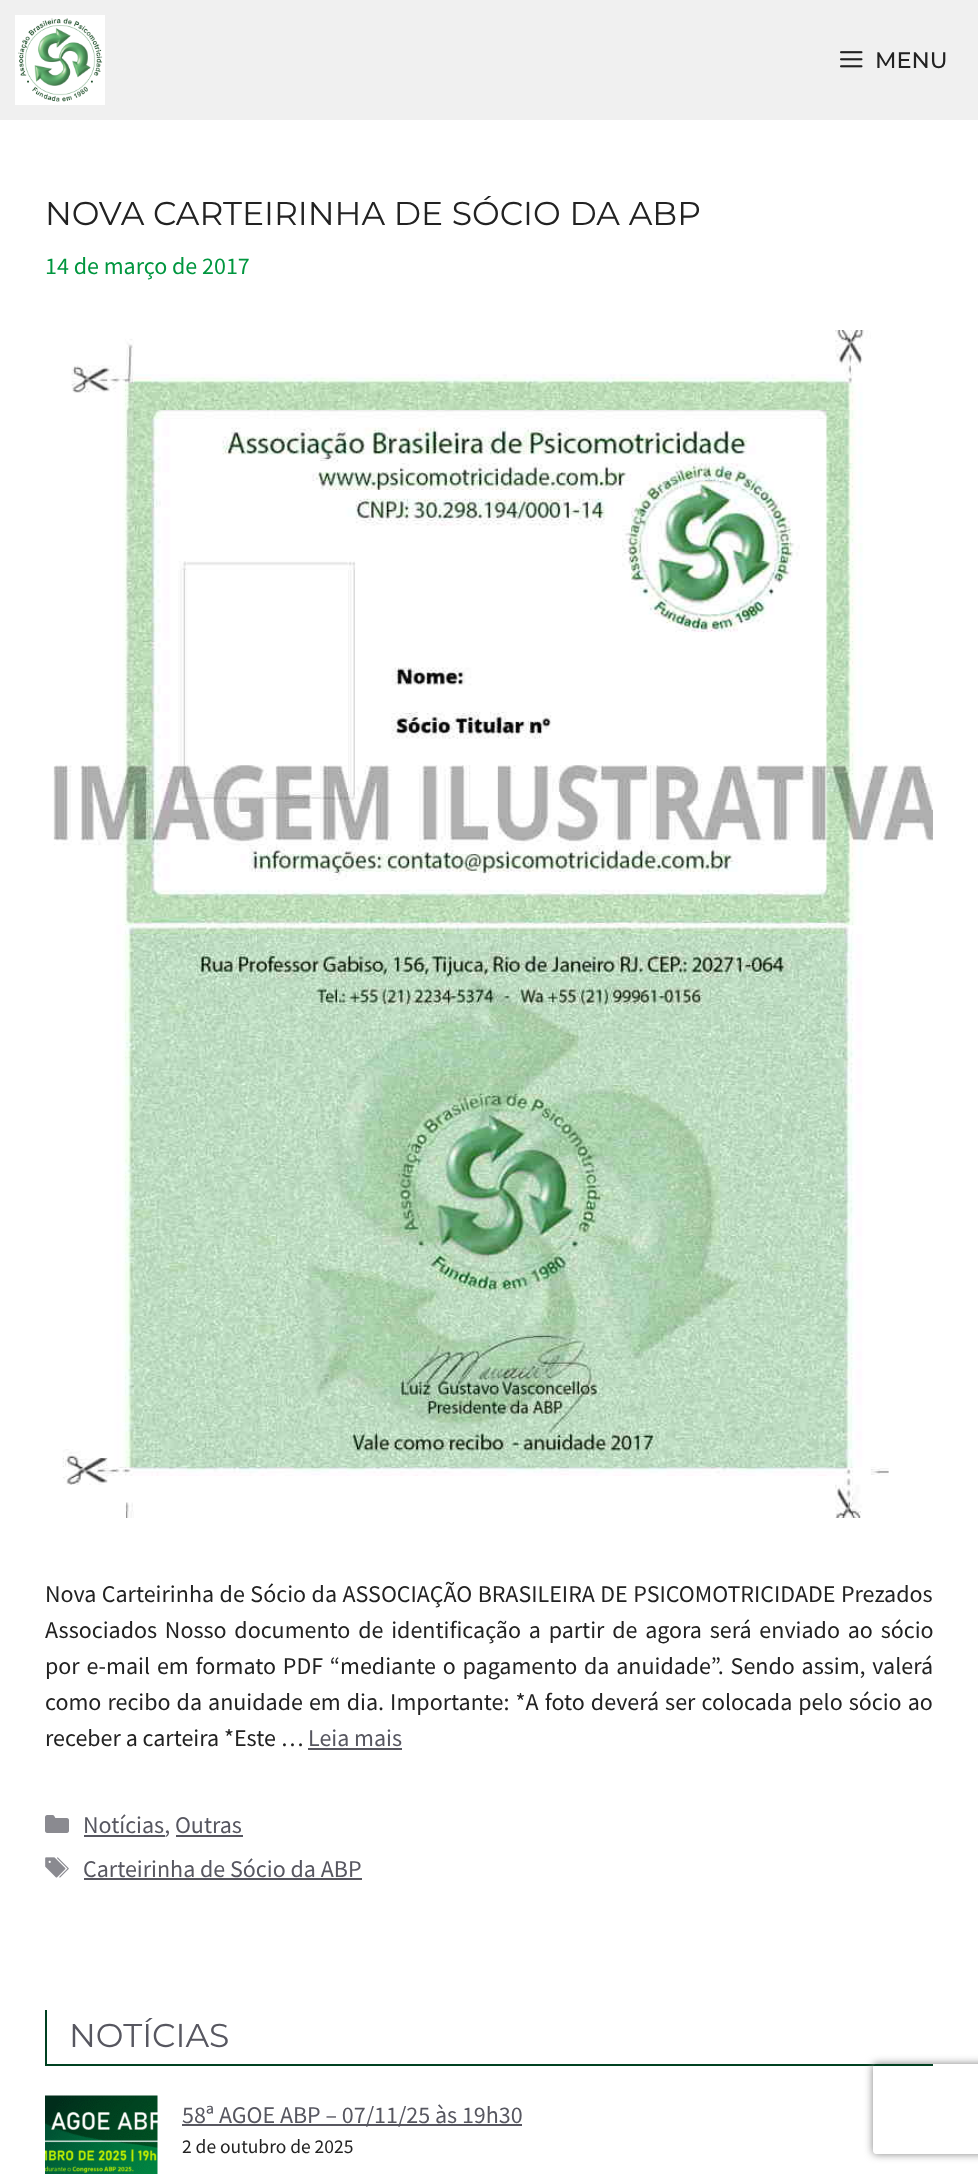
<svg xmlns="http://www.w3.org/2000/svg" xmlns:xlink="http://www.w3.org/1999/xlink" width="978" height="2174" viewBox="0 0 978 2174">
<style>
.cls-1{font:500 22.5px Montserrat;fill:#222222}
.cls-2{font:33px Montserrat;fill:#222222}
.cls-3{font:24px Source Sans Pro;fill:#00963f}
.cls-4{font:24px Source Sans Pro;fill:#222222}
.cls-5{font:24px Source Sans Pro;fill:#575760}
.cls-6{font:33px Montserrat;fill:#575760}
.cls-7{font:19.5px Source Sans Pro;fill:#222222}
</style>
<defs>
<clipPath id="clip1"><path d="M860 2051H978V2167H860ZM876 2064H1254C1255.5 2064 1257 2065.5 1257 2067V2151C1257 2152.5 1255.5 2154 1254 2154H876C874.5 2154 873 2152.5 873 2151V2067C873 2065.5 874.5 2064 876 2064Z" clip-rule="evenodd"/></clipPath>
</defs>
<rect width="100%" height="100%" fill="#ffffff"/>
<rect fill="#f0f0f0" x="0" y="0" width="978" height="120"/>
<image xlink:href="image0.png" x="15" y="15" width="90" height="90"/>
<image xlink:href="image1.png" x="840" y="51" width="23" height="17"/>
<image xlink:href="image2.png" x="53" y="330" width="880" height="1188"/>
<rect fill="#575760" x="308" y="1748" width="94" height="2"/>
<image xlink:href="image3.png" x="45" y="1815" width="24" height="18"/>
<rect fill="#575760" x="84" y="1835" width="81" height="2"/>
<rect fill="#575760" x="176" y="1835" width="67" height="2"/>
<image xlink:href="image4.png" x="45" y="1857" width="24" height="21"/>
<rect fill="#575760" x="84" y="1878" width="278" height="2"/>
<rect fill="#004121" x="45" y="2064" width="888" height="2"/>
<rect fill="#004121" x="45" y="2010" width="2" height="56"/>
<image xlink:href="image5.png" x="45" y="2095" width="113" height="79"/>
<rect fill="#575760" x="182" y="2124" width="340" height="2"/>
<g clip-path="url(#clip1)">
<rect fill="#808080" filter="blur(4px)" x="873" y="2064" width="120" height="90" rx="3"/>
</g>
<text class="cls-1" x="875" y="68">MENU</text>
<text class="cls-2" x="45" y="225">NOVA CARTEIRINHA DE SÓCIO DA ABP</text>
<text class="cls-3" x="45" y="274">14 de março de 2017</text>
<text class="cls-4"><tspan x="45" y="1602" word-spacing="0.75">Nova Carteirinha de Sócio da ASSOCIAÇÃO BRASILEIRA DE PSICOMOTRICIDADE Prezados</tspan><tspan x="45" y="1638" word-spacing="3">Associados Nosso documento de identificação a partir de agora será enviado ao sócio</tspan><tspan x="45" y="1674" word-spacing="2">por e-mail em formato PDF “mediante o pagamento da anuidade”. Sendo assim, valerá</tspan><tspan x="45" y="1710" word-spacing="1.25">como recibo da anuidade em dia. Importante: *A foto deverá ser colocada pelo sócio ao</tspan><tspan x="45" y="1746">receber a carteira *Este …</tspan></text>
<text class="cls-5" x="308" y="1746">Leia mais</text>
<text class="cls-5"><tspan x="83" y="1833">Notícias, Outras</tspan><tspan x="83" y="1877">Carteirinha de Sócio da ABP</tspan></text>
<text class="cls-6" x="69" y="2047">NOTÍCIAS</text>
<text class="cls-5" x="182" y="2123">58ª AGOE ABP – 07/11/25 às 19h30</text>
<text class="cls-7" x="182" y="2153">2 de outubro de 2025</text>
</svg>
